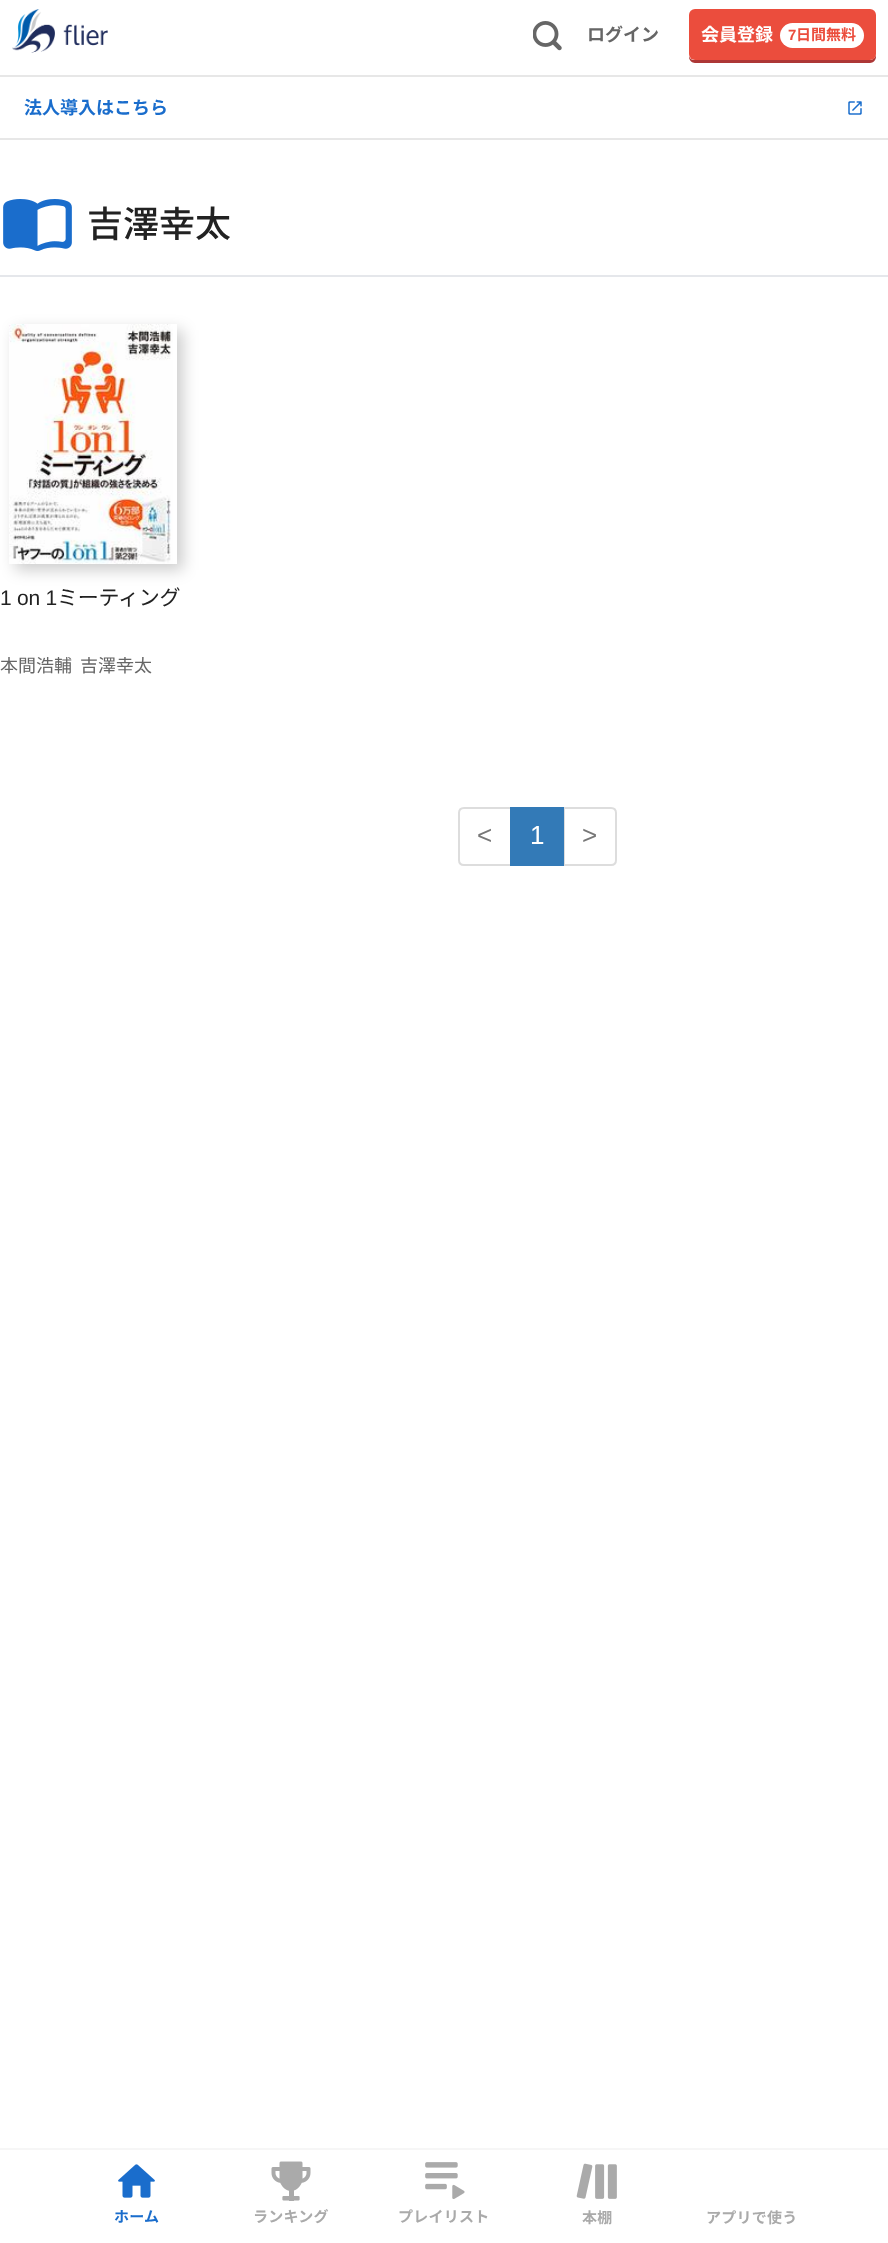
<svg xmlns="http://www.w3.org/2000/svg" xmlns:xlink="http://www.w3.org/1999/xlink" width="888" height="2243" viewBox="0 0 888 2243">
<style>
.cls-1{font:bold 18px Noto Sans JP;fill:#666666}
.cls-2{font:bold 18px Noto Sans JP;fill:#ffffff}
.cls-3{font:bold 15px Liberation Sans;fill:#eb4d3d}
.cls-4{font:bold 15px Noto Sans JP;fill:#eb4d3d}
.cls-5{font:bold 18px Noto Sans JP;fill:#1a6dcc}
.cls-6{font:500 36px Noto Sans JP;fill:#222222}
.cls-7{font:21px Liberation Sans;letter-spacing:-0.25px;fill:#222222}
.cls-8{font:21px Noto Sans JP;letter-spacing:-0.25px;fill:#222222}
.cls-9{font:18px Noto Sans JP;fill:#666666}
.cls-10{font:26px Liberation Sans;fill:#777777}
.cls-11{font:26px Liberation Sans;fill:#ffffff}
.cls-12{font:bold 15px Noto Sans JP;letter-spacing:0.25px;fill:#1a6dcc}
.cls-13{font:bold 15px Noto Sans JP;letter-spacing:0.25px;fill:#aaaaaa}
</style>
<defs>
<clipPath id="clip1"><path d="M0 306H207V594H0ZM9 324H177V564H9Z" clip-rule="evenodd"/></clipPath>
</defs>
<rect width="100%" height="100%" fill="#ffffff"/>
<rect fill="#e7e7e7" x="0" y="75" width="888" height="2"/>
<image xlink:href="image0.png" x="12" y="9" width="96" height="44"/>
<image xlink:href="image1.png" x="533" y="21" width="29" height="30"/>
<path fill="#ad3736" d="M689 56V57C689 60 692 63 695 63H870C873 63 876 60 876 57V54C876 57 873 60 870 60H694C692 60 690 59 689 56Z"/>
<rect fill="#eb4d3d" x="689" y="9" width="187" height="51" rx="6"/>
<rect fill="#ffffff" x="780" y="23" width="84" height="25" rx="12.5"/>
<rect fill="#e7e7e7" x="0" y="138" width="888" height="2"/>
<image xlink:href="image2.png" x="848" y="101" width="14" height="14"/>
<rect fill="#e5e7eb" x="0" y="275" width="888" height="2"/>
<image xlink:href="image3.png" x="3" y="199" width="69" height="52"/>
<g clip-path="url(#clip1)">
<rect fill="#000000" fill-opacity="0.2" filter="blur(7.5px)" x="15" y="330" width="168" height="240"/>
</g>
<image xlink:href="image4.png" x="9" y="324" width="164" height="240"/>
<path fill="none" stroke="#dddddd" stroke-width="2" d="M464 808H511V865H464C461 865 459 863 459 860V813C459 810 461 808 464 808Z"/>
<path fill="none" stroke="#dddddd" stroke-width="2" d="M564 808H611C614 808 616 810 616 813V860C616 863 614 865 611 865H564Z"/>
<rect fill="#337ab7" x="510" y="807" width="54" height="59"/>
<rect fill="#f6f6f6" x="0" y="2148" width="888" height="2"/>
<image xlink:href="image5.png" x="118" y="2164" width="37" height="34"/>
<image xlink:href="image6.png" x="271" y="2161" width="40" height="40"/>
<image xlink:href="image7.png" x="425" y="2162" width="40" height="37"/>
<image xlink:href="image8.png" x="576" y="2163" width="41" height="36"/>
<text class="cls-1" x="587" y="41">ログイン</text>
<text class="cls-2" x="701" y="41">会員登録</text>
<text class="cls-3" x="788" y="40">7</text>
<text class="cls-4" x="796" y="40">日間無料</text>
<text class="cls-5" x="24" y="114">法人導入はこちら</text>
<text class="cls-6" x="87" y="237">吉澤幸太</text>
<text class="cls-7" x="0" y="605">1 on 1</text>
<text class="cls-8" x="57" y="605">ミーティング</text>
<text class="cls-9" x="0" y="672">本間浩輔</text>
<text class="cls-9" x="80" y="672">吉澤幸太</text>
<text class="cls-10" x="477" y="844">&lt;</text>
<text class="cls-11" x="530" y="844">1</text>
<text class="cls-10" x="582" y="844">&gt;</text>
<text class="cls-12" x="114" y="2222">ホーム</text>
<text class="cls-13" x="253" y="2222">ランキング</text>
<text class="cls-13" x="398" y="2222">プレイリスト</text>
<text class="cls-13" x="582" y="2223">本棚</text>
<text class="cls-13" x="706" y="2223">アプリで使う</text>
</svg>
